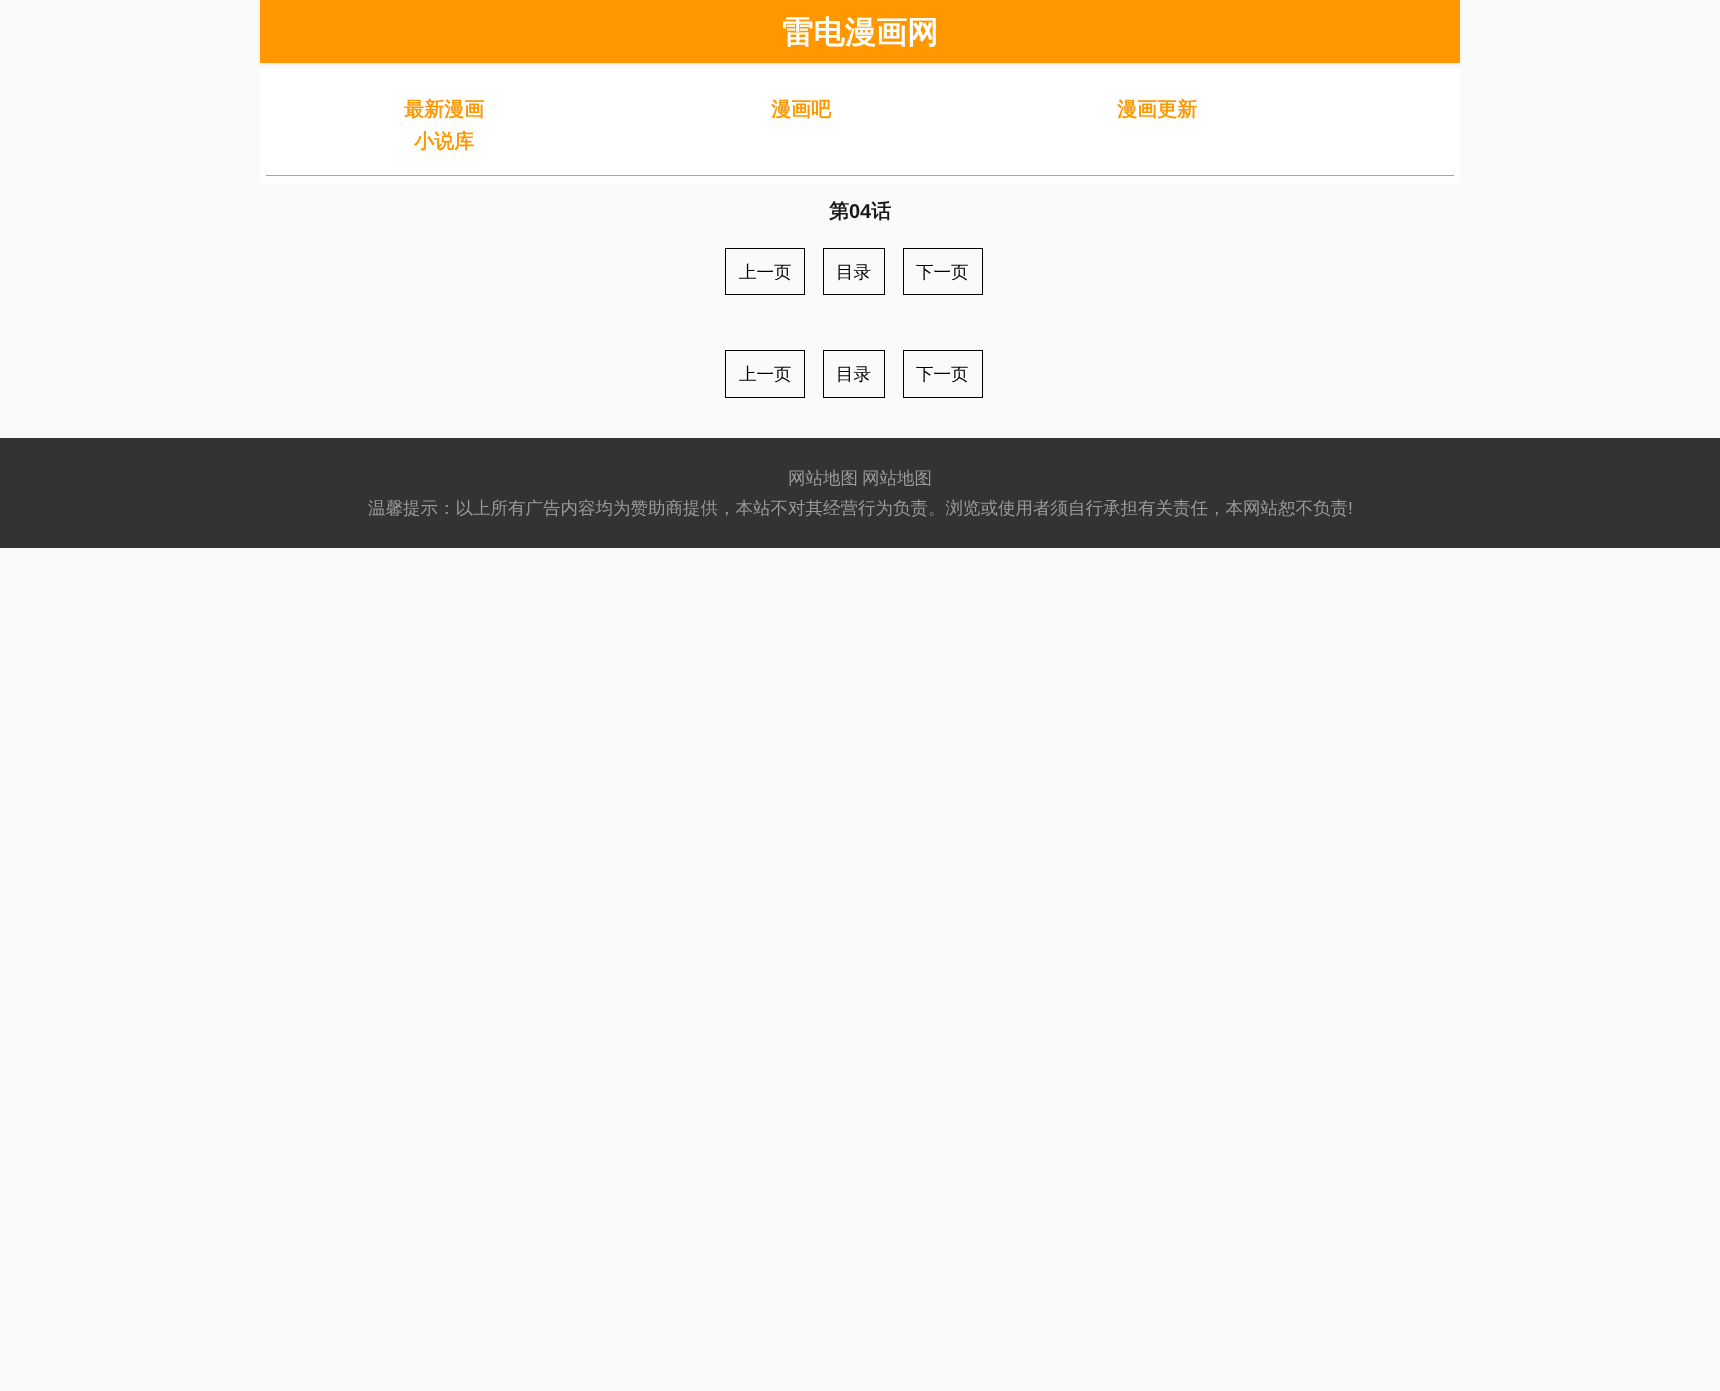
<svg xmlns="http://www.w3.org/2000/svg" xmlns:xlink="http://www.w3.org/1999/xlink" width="1720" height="1391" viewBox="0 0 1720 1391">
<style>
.cls-1{font:bold 31.25px WenQuanYi Zen Hei;fill:#ffffff}
.cls-2{font:bold 20px WenQuanYi Zen Hei;fill:#ff9800}
.cls-3{font:bold 20px WenQuanYi Zen Hei;fill:#181818}
.cls-4{font:bold 20px Liberation Sans;fill:#181818}
.cls-5{font:500 17.5px WenQuanYi Zen Hei;fill:#000000}
.cls-6{font:500 17.5px WenQuanYi Zen Hei;fill:#999999}
.cls-7{font:17.5px Liberation Sans;fill:#999999}
</style>
<rect width="100%" height="100%" fill="#fafafa"/>
<rect fill="#000000" fill-opacity="0.08" filter="blur(2px)" x="260" y="1" width="1200" height="63"/>
<rect fill="#ff9800" x="260" y="0" width="1200" height="63"/>
<rect fill="#ffffff" x="260" y="69" width="1200" height="114"/>
<rect fill="#ff9800" x="266" y="175" width="1188" height="1"/>
<rect fill="none" stroke="#000000" x="725.5" y="248.5" width="79" height="46"/>
<rect fill="none" stroke="#000000" x="823.5" y="248.5" width="61" height="46"/>
<rect fill="none" stroke="#000000" x="903.5" y="248.5" width="79" height="46"/>
<rect fill="none" stroke="#000000" x="725.5" y="350.5" width="79" height="47"/>
<rect fill="none" stroke="#000000" x="823.5" y="350.5" width="61" height="47"/>
<rect fill="none" stroke="#000000" x="903.5" y="350.5" width="79" height="47"/>
<rect fill="#333333" x="0" y="438" width="1720" height="110"/>
<text class="cls-1" x="782" y="43">雷电漫画网</text>
<text class="cls-2" x="404" y="116">最新漫画</text>
<text class="cls-2" x="771" y="116">漫画吧</text>
<text class="cls-2" x="1117" y="116">漫画更新</text>
<text class="cls-2" x="414" y="148">小说库</text>
<text class="cls-3" x="829" y="218">第</text>
<text class="cls-4" x="849" y="218">04</text>
<text class="cls-3" x="871" y="218">话</text>
<text class="cls-5" x="739" y="278">上一页</text>
<text class="cls-5" x="836" y="278">目录</text>
<text class="cls-5" x="916" y="278">下一页</text>
<text class="cls-5" x="739" y="380">上一页</text>
<text class="cls-5" x="836" y="380">目录</text>
<text class="cls-5" x="916" y="380">下一页</text>
<text class="cls-6" x="788" y="484">网站地图</text>
<text class="cls-6" x="862" y="484">网站地图</text>
<text class="cls-6" x="368" y="514">温馨提示：以上所有广告内容均为赞助商提供，本站不对其经营行为负责。浏览或使用者须自行承担有关责任，本网站恕不负责</text>
<text class="cls-7" x="1348" y="514">!</text>
</svg>
